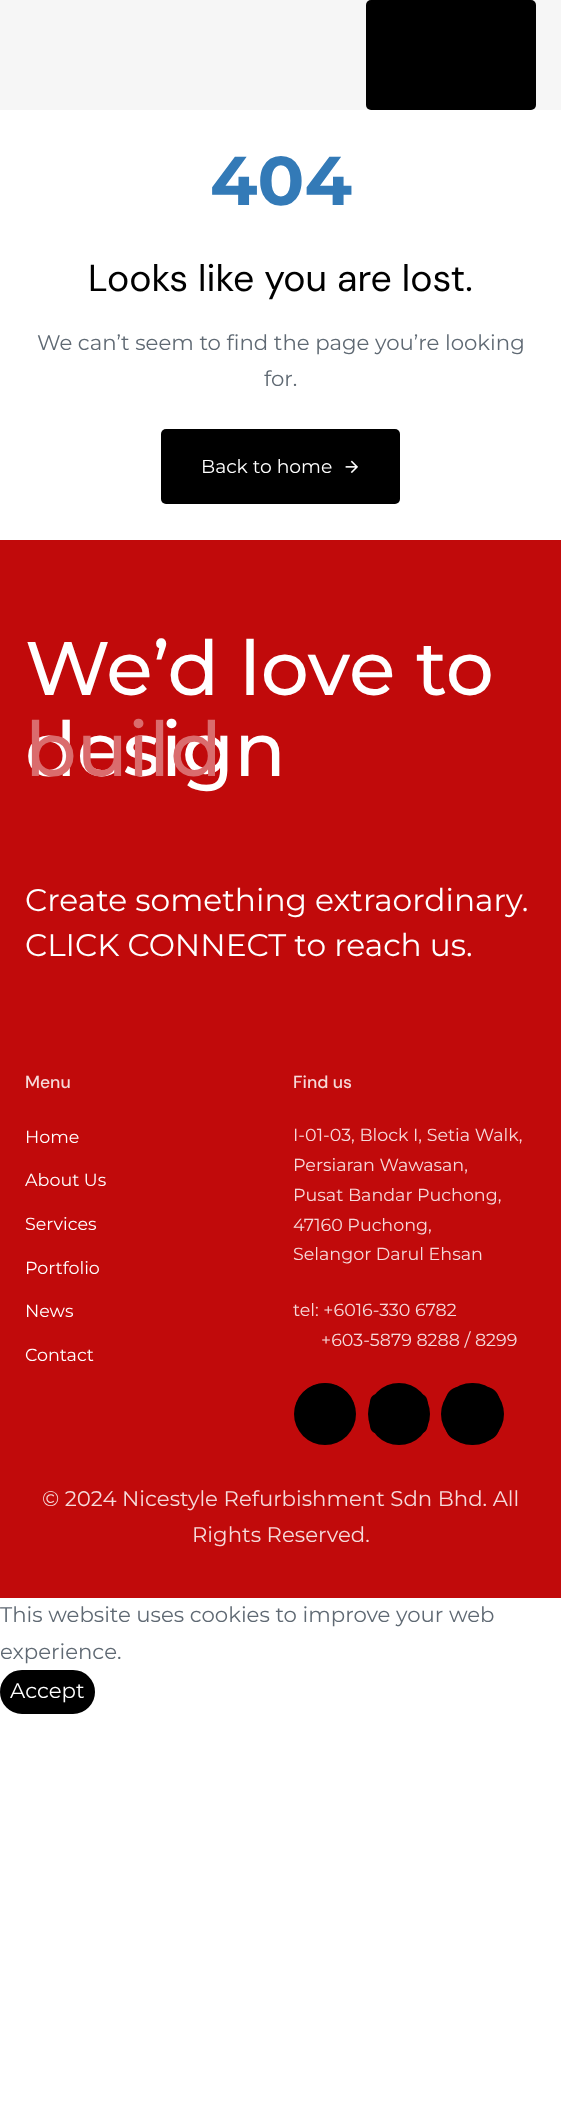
<svg xmlns="http://www.w3.org/2000/svg" xmlns:xlink="http://www.w3.org/1999/xlink" width="561" height="2103" viewBox="0 0 561 2103">
<style>
.cls-1{font:bold 69px Montserrat;fill:#337ab7}
.cls-2{font:37.5px DM Sans;fill:#000000}
.cls-3{font:21.25px Montserrat;fill:#5f6973}
.cls-4{font:18.75px Montserrat;fill:#ffffff}
.cls-5{font:500 75.75px Montserrat;fill:#ffffff}
.cls-6{font:500 75.75px Montserrat;fill:#da6c6d}
.cls-7{font:31.25px Montserrat;fill:#ffffff}
.cls-8{font:500 17.5px DM Sans;fill:#f6dada}
.cls-9{font:17.5px Montserrat;fill:#ffffff}
.cls-10{font:17.5px Montserrat;fill:#f6dada}
.cls-11{font:21.25px Montserrat;fill:#f6dada}
.cls-12{font:21.25px Montserrat;fill:#ffffff}
</style>
<rect width="100%" height="100%" fill="#ffffff"/>
<rect fill="#f6f6f6" x="0" y="0" width="561" height="110"/>
<rect fill="#000000" x="366" y="0" width="170" height="110" rx="5"/>
<rect fill="#000000" x="161" y="429" width="239" height="75" rx="5"/>
<image xlink:href="image0.png" x="345" y="460" width="13" height="13"/>
<rect fill="#c10a0b" x="0" y="540" width="561" height="1058"/>
<circle fill="#000000" cx="325" cy="1414" r="31"/>
<image xlink:href="image1.png" x="295" y="1383" width="60" height="23"/>
<circle fill="#000000" cx="399" cy="1414" r="31"/>
<image xlink:href="image2.png" x="369" y="1394" width="59" height="39"/>
<rect fill="#000000" x="441" y="1383" width="63" height="62" rx="31"/>
<image xlink:href="image3.png" x="445" y="1387" width="55" height="54"/>
<rect fill="#000000" stroke="#000000" stroke-width="3" x="1.5" y="1671.5" width="92" height="41" rx="20.5"/>
<text class="cls-1" x="210" y="205">404</text>
<text class="cls-2" x="88" y="291">Looks like you are lost.</text>
<text class="cls-3" x="37" y="350">We can’t seem to find the page you’re looking</text>
<text class="cls-3" x="264" y="386">for.</text>
<text class="cls-4" x="201" y="473">Back to home</text>
<text class="cls-5"><tspan x="25" y="695">We’d love to</tspan><tspan x="25" y="776">design</tspan></text>
<text class="cls-6" x="25" y="776">build</text>
<text class="cls-7"><tspan x="25" y="911">Create something extraordinary.</tspan><tspan x="25" y="956">CLICK CONNECT to reach us.</tspan></text>
<text class="cls-8" x="25" y="1088">Menu</text>
<text class="cls-9" x="25" y="1143">Home</text>
<text class="cls-9" x="25" y="1186">About Us</text>
<text class="cls-9" x="25" y="1230">Services</text>
<text class="cls-9" x="25" y="1274">Portfolio</text>
<text class="cls-9" x="25" y="1317">News</text>
<text class="cls-9" x="25" y="1361">Contact</text>
<text class="cls-8" x="293" y="1088">Find us</text>
<text class="cls-10"><tspan x="293" y="1141">I-01-03, Block I, Setia Walk,</tspan><tspan x="293" y="1171">Persiaran Wawasan,</tspan><tspan x="293" y="1201">Pusat Bandar Puchong,</tspan><tspan x="293" y="1231">47160 Puchong,</tspan><tspan x="293" y="1260">Selangor Darul Ehsan</tspan></text>
<text class="cls-10" x="293" y="1316">tel: +6016-330 6782</text>
<text class="cls-10" x="321" y="1346">+603-5879 8288 / 8299</text>
<text class="cls-11" x="42" y="1506">© 2024 Nicestyle Refurbishment Sdn Bhd. All</text>
<text class="cls-11" x="192" y="1542">Rights Reserved.</text>
<text class="cls-3"><tspan x="0" y="1622">This website uses cookies to improve your web</tspan><tspan x="0" y="1659">experience.</tspan></text>
<text class="cls-12" x="10" y="1698">Accept</text>
</svg>
